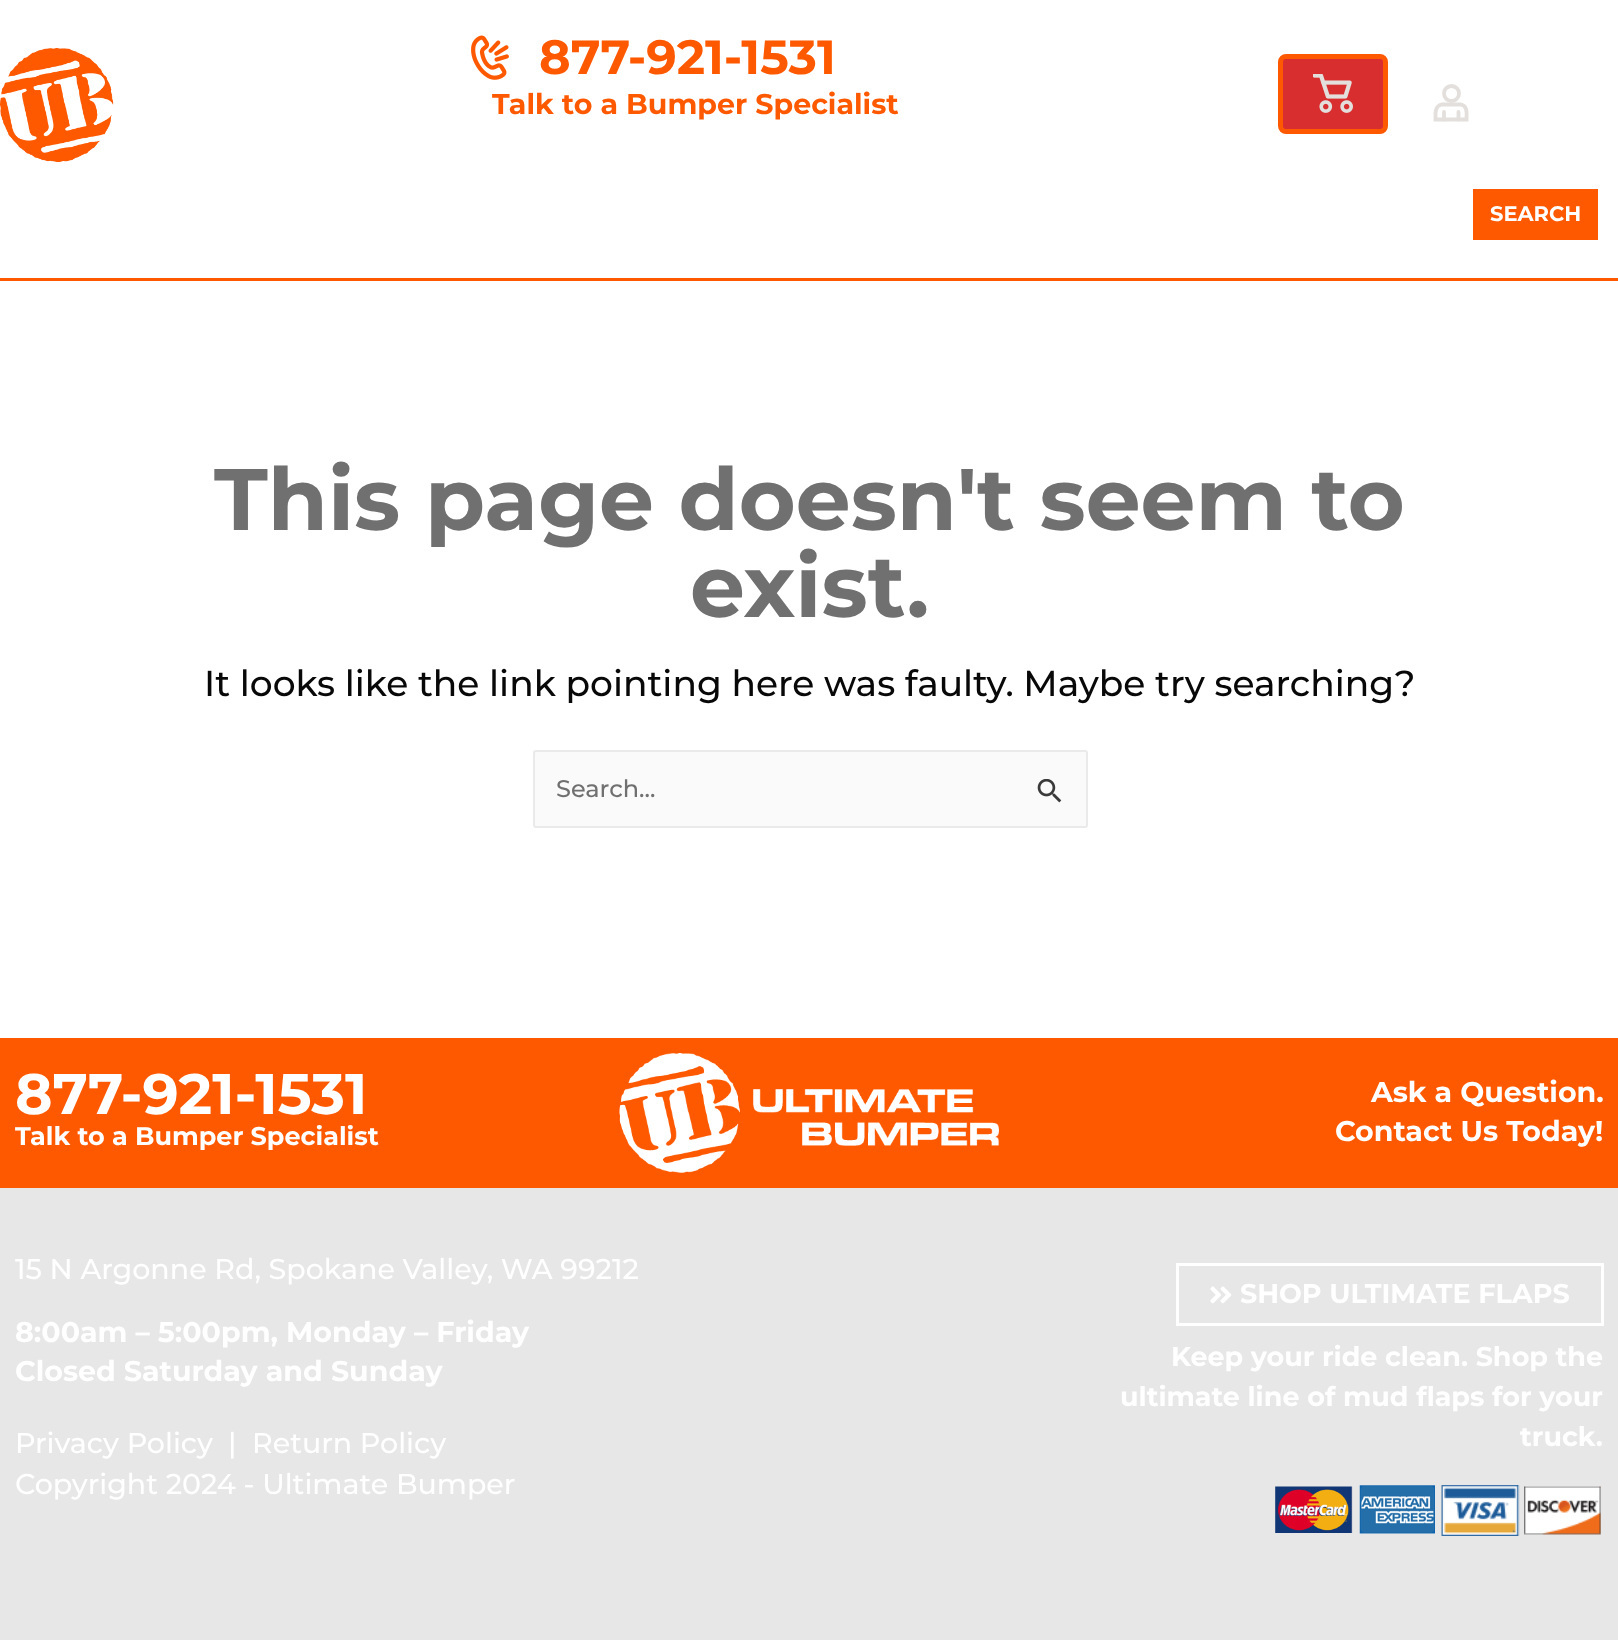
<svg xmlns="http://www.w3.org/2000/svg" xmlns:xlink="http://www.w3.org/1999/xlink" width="1618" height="1640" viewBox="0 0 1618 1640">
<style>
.cls-1{font:bold 48px Montserrat;fill:#ff5900}
.cls-2{font:bold 28.5px Montserrat;fill:#ff5900}
.cls-3{font:bold 21px Montserrat;fill:#ffffff}
.cls-4{font:bold 87px Montserrat;fill:#707070}
.cls-5{font:500 36px Montserrat;fill:#080808}
.cls-6{font:500 24px Montserrat;fill:#707070}
.cls-7{font:bold 57px Montserrat;fill:#ffffff}
.cls-8{font:bold 25.5px Montserrat;fill:#ffffff}
.cls-9{font:bold 28.5px Montserrat;fill:#ffffff}
.cls-10{font:500 28.5px Montserrat;fill:#ffffff}
.cls-11{font:bold 27px Montserrat;fill:#ffffff}
</style>
<rect width="100%" height="100%" fill="#ffffff"/>
<rect fill="#ff5900" x="0" y="278" width="1618" height="3"/>
<image xlink:href="image0.png" x="0" y="48" width="114" height="114"/>
<image xlink:href="image1.png" x="471" y="35" width="38" height="45"/>
<rect fill="#d82e2f" stroke="#ff5900" stroke-width="5" x="1280.5" y="56.5" width="105" height="75" rx="5.5"/>
<image xlink:href="image2.png" x="1313" y="74" width="40" height="39"/>
<path fill="none" stroke="#e3dfdc" stroke-width="3.8" stroke-linecap="round" d="M1466.5 119.5C1466.5 114 1468 106 1461 104.5H1441.5C1434.5 106 1435.5 114 1435.5 119.5Z"/>
<circle fill="none" stroke="#e3dfdc" stroke-width="3.8" cx="1451.5" cy="93.5" r="7.5"/>
<path fill="none" stroke="#e3dfdc" stroke-width="3.8" stroke-linecap="round" d="M1444 119.5V112M1458.5 119.5V112"/>
<rect fill="#ff5900" x="1473" y="189" width="125" height="51"/>
<rect fill="#fafafa" stroke="#eaeaea" stroke-width="2" x="534" y="751" width="553" height="76" rx="2"/>
<image xlink:href="image3.png" x="1037" y="779" width="25" height="24"/>
<rect fill="#ff5900" x="0" y="1038" width="1618" height="150"/>
<image xlink:href="image4.png" x="619" y="1053" width="380" height="120"/>
<rect fill="#e7e7e7" x="0" y="1188" width="1618" height="452"/>
<rect fill="none" stroke="#ffffff" stroke-width="3" x="1177.5" y="1264.5" width="425" height="60"/>
<image xlink:href="image5.png" x="1210" y="1286" width="22" height="18"/>
<image xlink:href="image6.png" x="1275" y="1486" width="78" height="47"/>
<image xlink:href="image7.png" x="1359" y="1485" width="76" height="49"/>
<image xlink:href="image8.png" x="1441" y="1485" width="79" height="51"/>
<image xlink:href="image9.png" x="1524" y="1486" width="77" height="49"/>
<text class="cls-1" x="539" y="74">877-921-1531</text>
<text class="cls-2" x="492" y="114">Talk to a Bumper Specialist</text>
<text class="cls-3" x="1490" y="221">SEARCH</text>
<text class="cls-4" x="214" y="530">This page doesn't seem to</text>
<text class="cls-4" x="690" y="617">exist.</text>
<text class="cls-5" x="204" y="696">It looks like the link pointing here was faulty. Maybe try searching?</text>
<text class="cls-6" x="556" y="797">Search...</text>
<text class="cls-7" x="15" y="1114">877-921-1531</text>
<text class="cls-8" x="15" y="1145">Talk to a Bumper Specialist</text>
<text class="cls-9" x="1371" y="1102">Ask a Question.</text>
<text class="cls-9" x="1335" y="1141">Contact Us Today!</text>
<text class="cls-10" x="15" y="1279">15 N Argonne Rd, Spokane Valley, WA 99212</text>
<text class="cls-9"><tspan x="15" y="1342">8:00am – 5:00pm, Monday – Friday</tspan><tspan x="15" y="1381">Closed Saturday and Sunday</tspan></text>
<text class="cls-10" x="15" y="1453">Privacy Policy</text>
<text class="cls-10" x="228" y="1453">|</text>
<text class="cls-10" x="252" y="1453">Return Policy</text>
<text class="cls-10" x="15" y="1494">Copyright 2024 - Ultimate Bumper</text>
<text class="cls-11" x="1240" y="1303">SHOP ULTIMATE FLAPS</text>
<text class="cls-11" x="1171" y="1366">Keep your ride clean. Shop the</text>
<text class="cls-11" x="1120" y="1406">ultimate line of mud flaps for your</text>
<text class="cls-11" x="1520" y="1446">truck.</text>
</svg>
